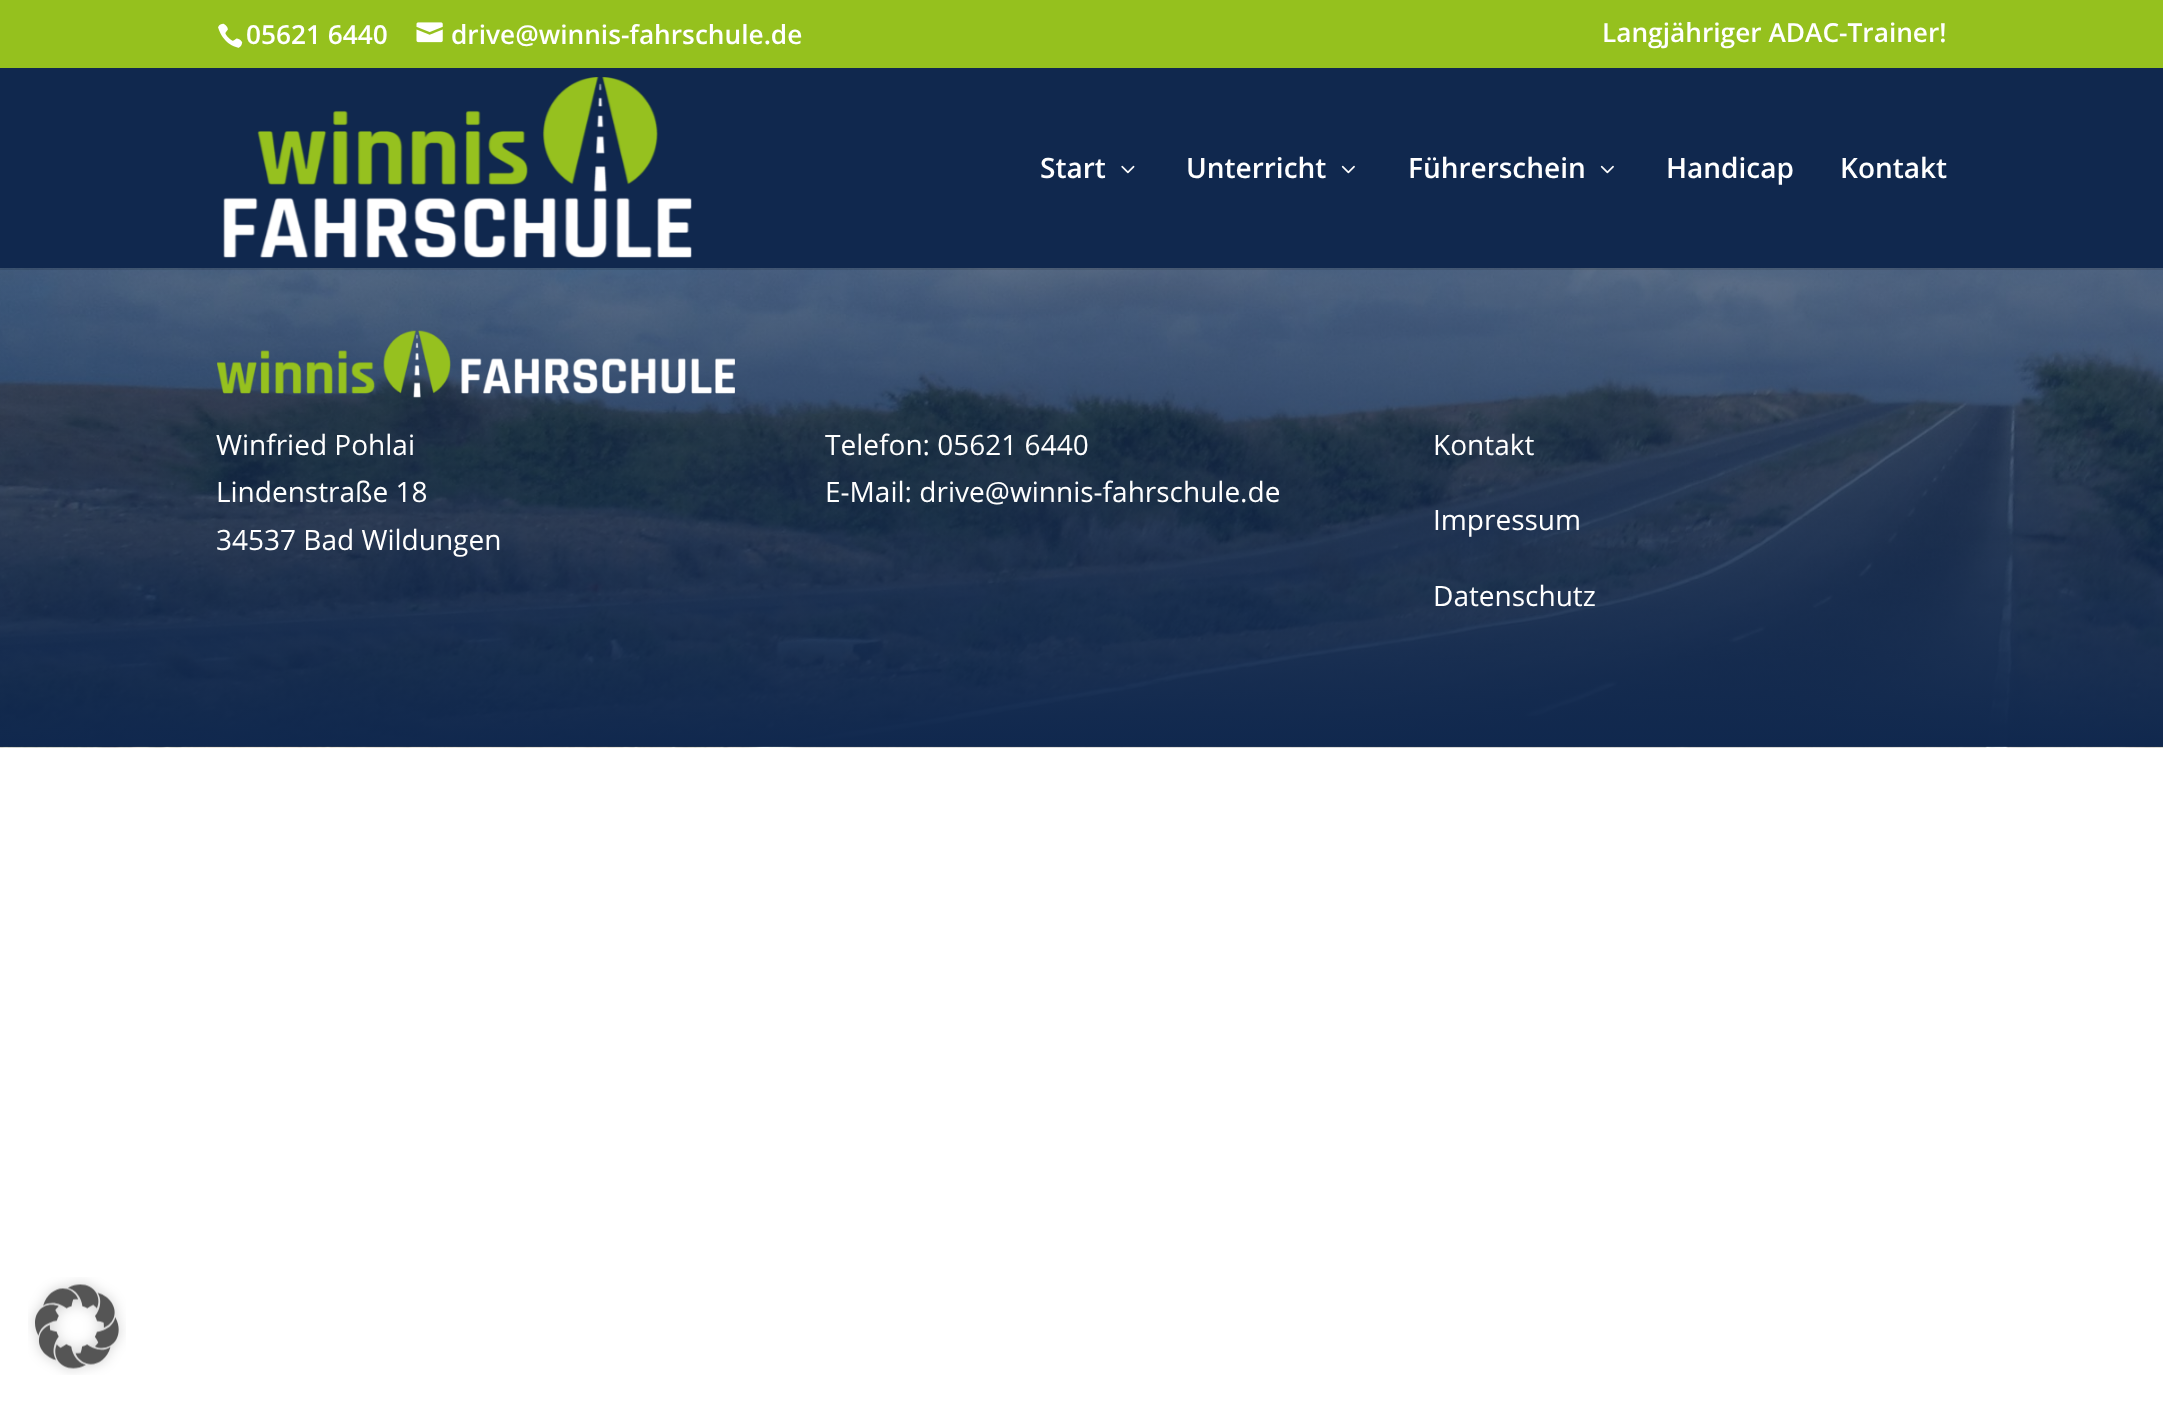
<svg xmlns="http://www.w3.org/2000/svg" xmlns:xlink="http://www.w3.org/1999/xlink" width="2163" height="1403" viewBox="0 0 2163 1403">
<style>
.cls-1{font:600 26.25px Open Sans;fill:#ffffff}
.cls-2{font:600 28px Open Sans;fill:#ffffff}
.cls-3{font:28px Open Sans;fill:#ffffff}
</style>
<rect width="100%" height="100%" fill="#ffffff"/>
<rect fill="#95c11e" x="0" y="0" width="2163" height="68"/>
<image xlink:href="image0.png" x="218" y="23" width="25" height="25"/>
<image xlink:href="image1.png" x="416" y="22" width="27" height="21"/>
<image xlink:href="image5.png" x="0" y="268" width="2163" height="480"/>
<rect fill="#000000" fill-opacity="0.1" x="0" y="268" width="2163" height="2"/>
<rect fill="#10284e" x="0" y="68" width="2163" height="200"/>
<image xlink:href="image2.png" x="223" y="77" width="469" height="181"/>
<image xlink:href="image3.png" x="1121" y="165" width="14" height="9"/>
<image xlink:href="image4.png" x="1341" y="165" width="14" height="9"/>
<image xlink:href="image4.png" x="1600" y="165" width="14" height="9"/>
<image xlink:href="image6.png" x="217" y="330" width="518" height="68"/>
<image xlink:href="image7.png" x="28" y="1277" width="98" height="98"/>
<text class="cls-1" x="246" y="44">05621 6440</text>
<text class="cls-1" x="451" y="44">drive@winnis-fahrschule.de</text>
<text class="cls-1" x="1602" y="42">Langjähriger ADAC-Trainer!</text>
<text class="cls-2" x="1040" y="178">Start</text>
<text class="cls-2" x="1186" y="178">Unterricht</text>
<text class="cls-2" x="1408" y="178">Führerschein</text>
<text class="cls-2" x="1666" y="178">Handicap</text>
<text class="cls-2" x="1840" y="178">Kontakt</text>
<text class="cls-3"><tspan x="216" y="455">Winfried Pohlai</tspan><tspan x="216" y="502">Lindenstraße 18</tspan><tspan x="216" y="550">34537 Bad Wildungen</tspan></text>
<text class="cls-3"><tspan x="825" y="455">Telefon: 05621 6440</tspan><tspan x="825" y="502">E-Mail: drive@winnis-fahrschule.de</tspan></text>
<text class="cls-3" x="1433" y="455">Kontakt</text>
<text class="cls-3" x="1433" y="530">Impressum</text>
<text class="cls-3" x="1433" y="606">Datenschutz</text>
</svg>
